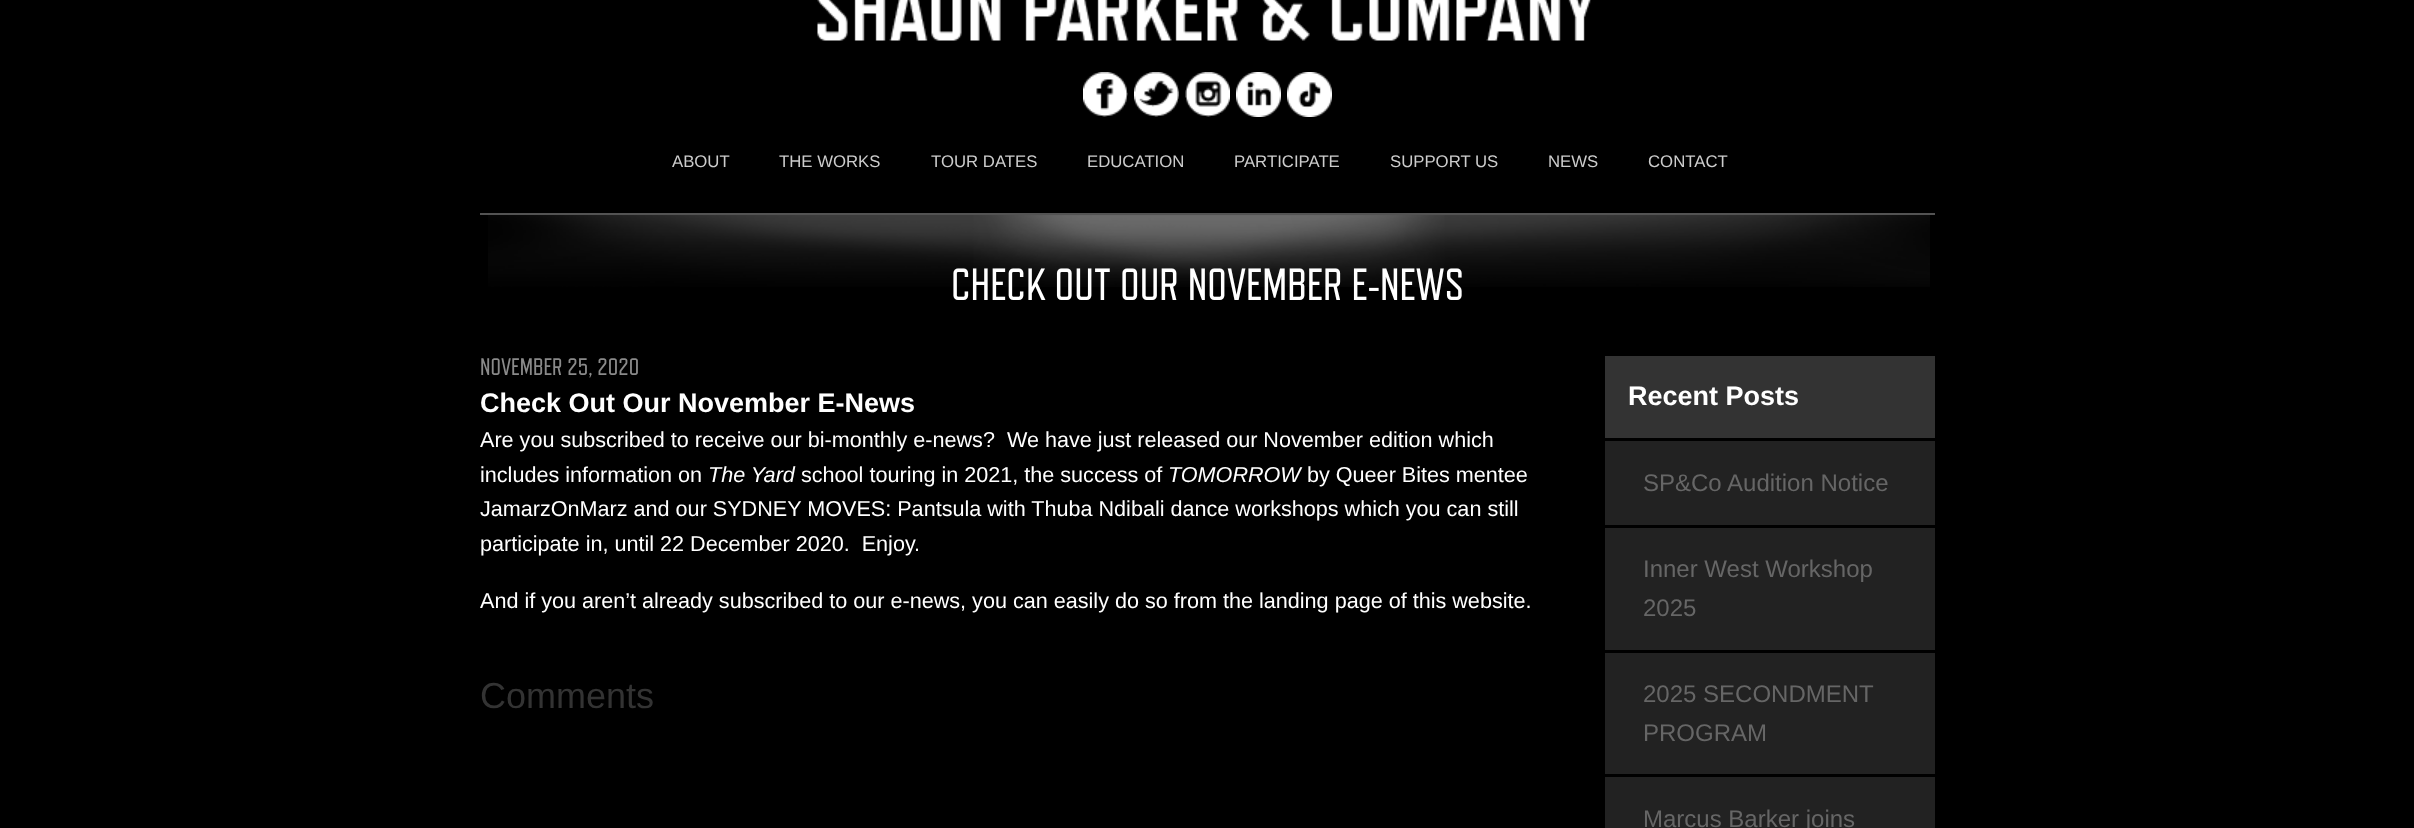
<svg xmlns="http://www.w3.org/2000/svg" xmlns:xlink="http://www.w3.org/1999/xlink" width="2414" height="828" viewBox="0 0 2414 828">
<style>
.cls-1{font:16.75px Liberation Sans;fill:#cccccc}
.cls-2{font:45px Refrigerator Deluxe;fill:#ffffff}
.cls-3{font:24px Refrigerator Deluxe;fill:#8a8a8a}
.cls-4{font:bold 27px Liberation Sans;fill:#ffffff}
.cls-5{font:21.6px Liberation Sans;fill:#ffffff}
.cls-6{font:italic 21.6px Liberation Sans;fill:#ffffff}
.cls-7{font:36px Liberation Sans;fill:#333333}
.cls-8{font:24px Liberation Sans;fill:#666666}
</style>
<rect width="100%" height="100%" fill="#000000"/>
<image xlink:href="image0.png" x="817" y="0" width="774" height="41"/>
<image xlink:href="image1.png" x="1083" y="72" width="45" height="45"/>
<image xlink:href="image2.png" x="1134" y="72" width="45" height="45"/>
<image xlink:href="image3.png" x="1185" y="72" width="45" height="45"/>
<image xlink:href="image4.png" x="1236" y="72" width="45" height="45"/>
<image xlink:href="image5.png" x="1287" y="72" width="45" height="45"/>
<image xlink:href="image6.png" x="488" y="215" width="1442" height="72"/>
<rect fill="#535353" x="480" y="213" width="1455" height="2"/>
<rect fill="#333333" x="1605" y="356" width="330" height="82"/>
<rect fill="#222222" x="1605" y="441" width="330" height="84"/>
<rect fill="#222222" x="1605" y="528" width="330" height="122"/>
<rect fill="#222222" x="1605" y="653" width="330" height="121"/>
<rect fill="#222222" x="1605" y="777" width="330" height="51"/>
<text class="cls-1" x="672" y="167">ABOUT</text>
<text class="cls-1" x="779" y="167">THE WORKS</text>
<text class="cls-1" x="931" y="167">TOUR DATES</text>
<text class="cls-1" x="1087" y="167">EDUCATION</text>
<text class="cls-1" x="1234" y="167">PARTICIPATE</text>
<text class="cls-1" x="1390" y="167">SUPPORT US</text>
<text class="cls-1" x="1548" y="167">NEWS</text>
<text class="cls-1" x="1648" y="167">CONTACT</text>
<text class="cls-2" x="951" y="300">CHECK OUT OUR NOVEMBER E-NEWS</text>
<text class="cls-3" x="480" y="375">NOVEMBER 25, 2020</text>
<text class="cls-4" x="480" y="412">Check Out Our November E-News</text>
<text class="cls-5" xml:space="preserve"><tspan x="480" y="447">Are you subscribed to receive our bi-monthly e-news?  We have just released our November edition which</tspan><tspan x="480" y="482">includes information on</tspan></text>
<text class="cls-6" x="708" y="482">The Yard</text>
<text class="cls-5" x="801" y="482">school touring in 2021, the success of</text>
<text class="cls-6" x="1168" y="482">TOMORROW</text>
<text class="cls-5" x="1307" y="482">by Queer Bites mentee</text>
<text class="cls-5" xml:space="preserve"><tspan x="480" y="516">JamarzOnMarz and our SYDNEY MOVES: Pantsula with Thuba Ndibali dance workshops which you can still</tspan><tspan x="480" y="551">participate in, until 22 December 2020.  Enjoy.</tspan></text>
<text class="cls-5" x="480" y="608">And if you aren’t already subscribed to our e-news, you can easily do so from the landing page of this website.</text>
<text class="cls-7" x="480" y="708">Comments</text>
<text class="cls-4" x="1628" y="405">Recent Posts</text>
<text class="cls-8" x="1643" y="491">SP&amp;Co Audition Notice</text>
<text class="cls-8"><tspan x="1643" y="577">Inner West Workshop</tspan><tspan x="1643" y="616">2025</tspan></text>
<text class="cls-8"><tspan x="1643" y="702">2025 SECONDMENT</tspan><tspan x="1643" y="741">PROGRAM</tspan></text>
<text class="cls-8" x="1643" y="827">Marcus Barker joins</text>
</svg>
